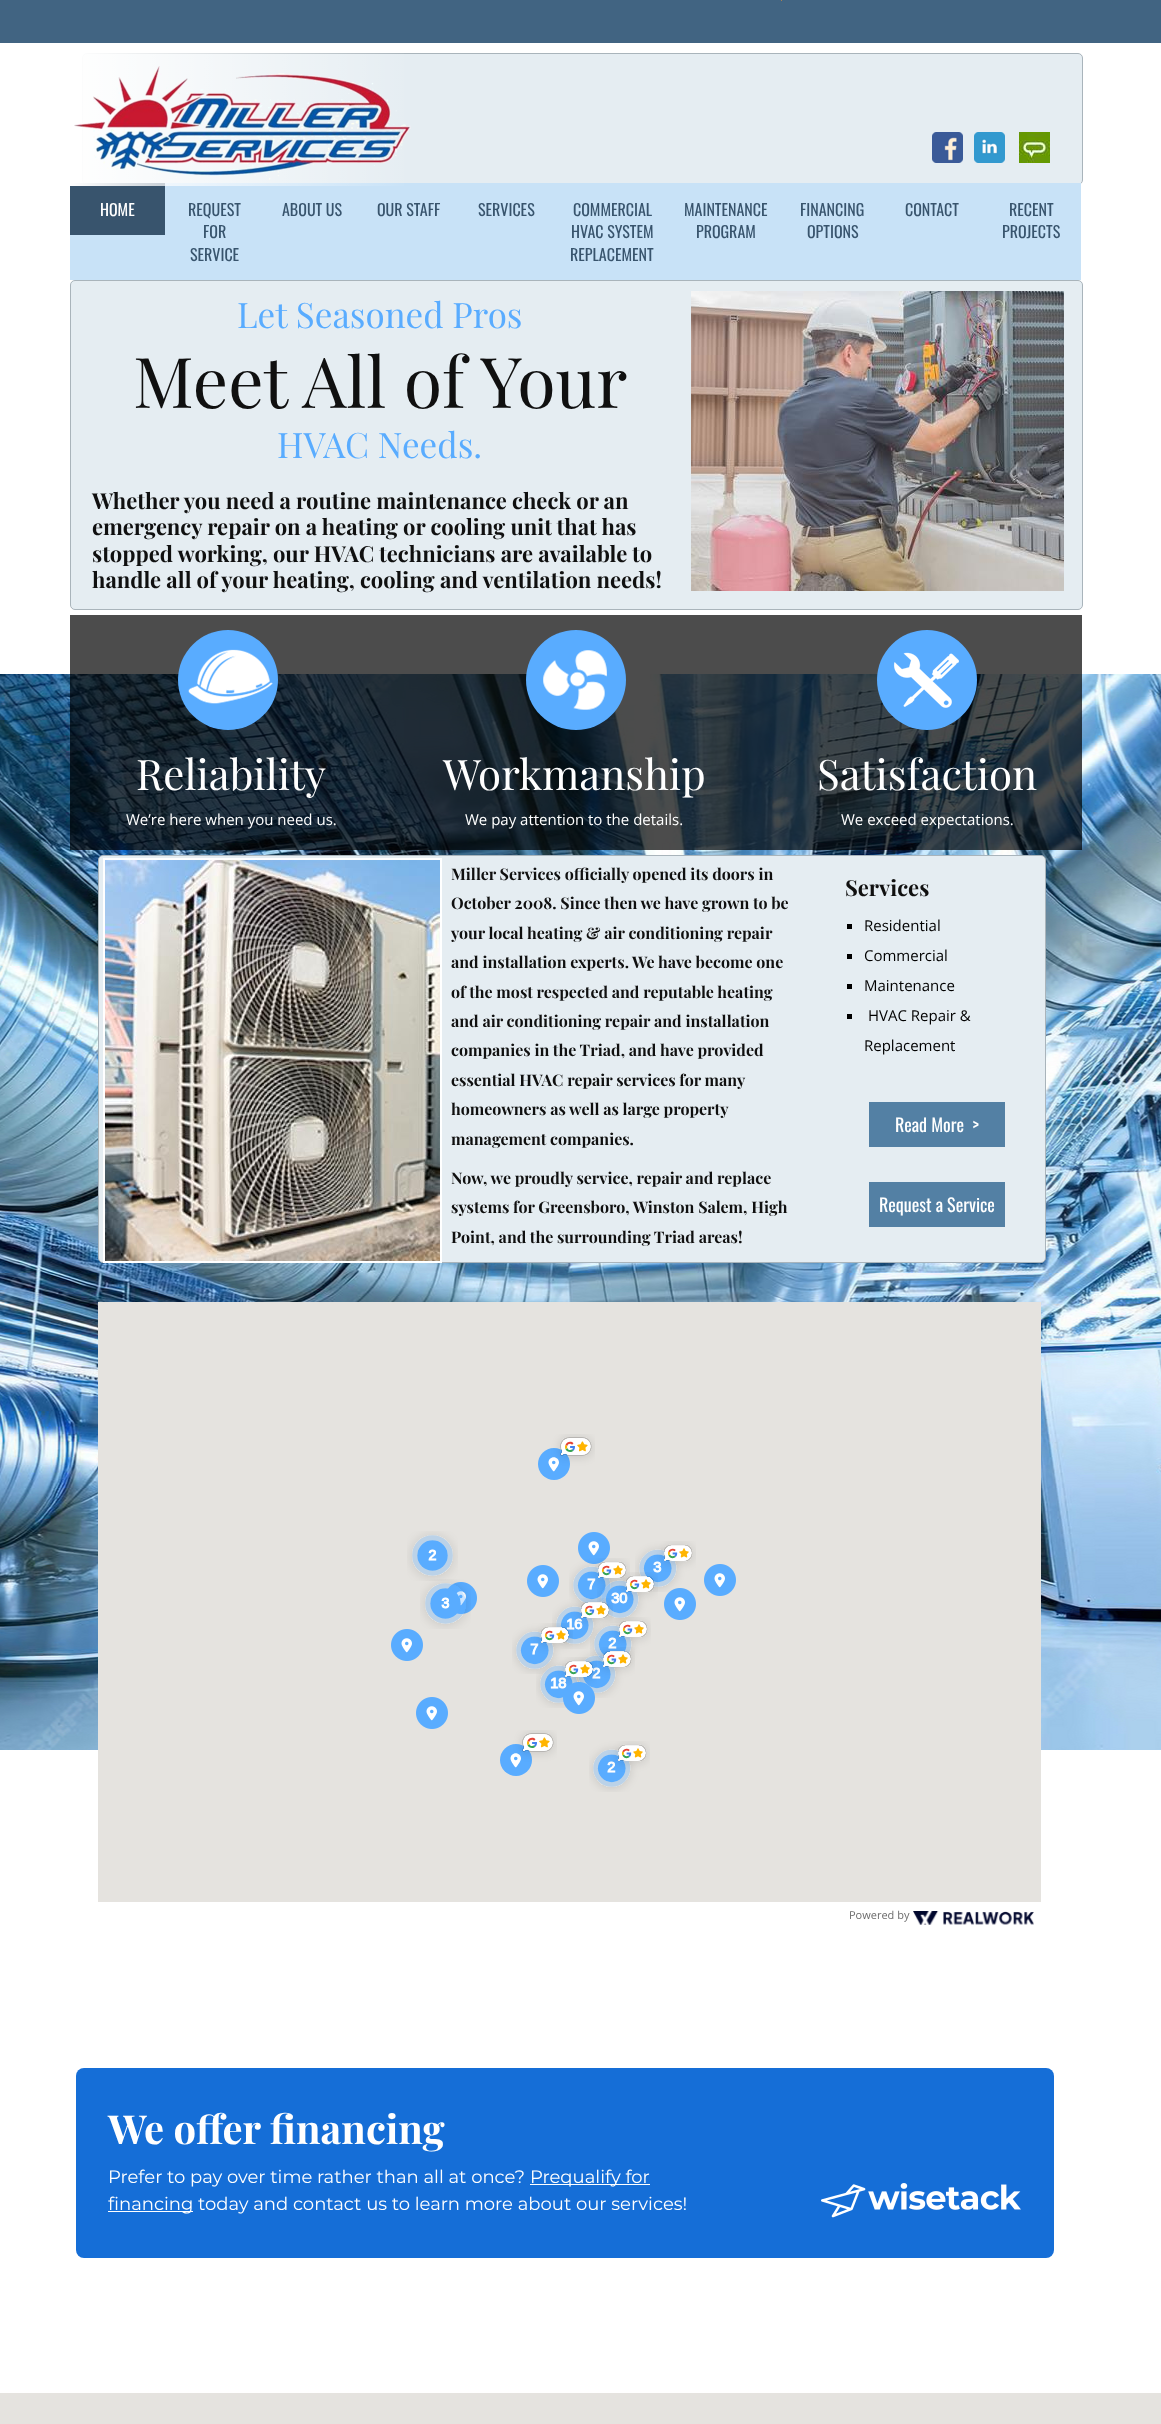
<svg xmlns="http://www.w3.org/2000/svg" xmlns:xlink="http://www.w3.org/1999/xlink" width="1161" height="2424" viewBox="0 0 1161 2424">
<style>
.cls-1{font:16px Oswald;fill:#ffffff}
.cls-2{font:16px Oswald;fill:#38546d}
.cls-3{font:35px Playfair Display;fill:#59acff}
.cls-4{font:70px Playfair Display;fill:#101010}
.cls-5{font:bold 22px Playfair Display;fill:#101010}
.cls-6{font:42px Playfair Display;fill:#ffffff}
.cls-7{font:15px Open Sans;fill:#ffffff}
.cls-8{font:bold 16px Playfair Display;fill:#101010}
.cls-9{font:15px Open Sans;fill:#000000}
.cls-10{font:18px Oswald;fill:#ffffff}
.cls-11{font:11px Open Sans;fill:#6c6c6c}
.cls-12{font:bold 40px Playfair Display;fill:#ffffff}
.cls-13{font:18px Montserrat;fill:#ffffff}
</style>
<defs>
<linearGradient id="g1" gradientUnits="userSpaceOnUse" x1="70" y1="120" x2="414" y2="119"><stop offset="0" stop-color="#ffffff"/><stop offset="1" stop-color="#ffffff" stop-opacity="0"/></linearGradient>
</defs>
<rect width="100%" height="100%" fill="#ffffff"/>
<image xlink:href="image0.png" x="0" y="674" width="1161" height="1076"/>
<rect fill="#416482" x="0" y="0" width="1161" height="43"/>
<rect fill="#a38154" x="781" y="0" width="1" height="1"/>
<rect fill="#e5edf2" stroke="#a9b4bb" x="82.5" y="53.5" width="1000" height="131" rx="4.5"/>
<rect fill="#c8e2f7" x="70" y="183" width="1011" height="97"/>
<rect fill="#38546d" x="70" y="183" width="95" height="52"/>
<rect fill="url(#g1)" x="70" y="53" width="334" height="133"/>
<image xlink:href="image1.png" x="74" y="66" width="337" height="114"/>
<image xlink:href="image2.png" x="932" y="132" width="31" height="31"/>
<image xlink:href="image3.png" x="974" y="132" width="31" height="31"/>
<image xlink:href="image4.png" x="1019" y="132" width="31" height="31"/>
<rect fill="#e5edf2" stroke="#a9b4bb" x="70.5" y="280.5" width="1012" height="329" rx="4.5"/>
<image xlink:href="image5.png" x="691" y="291" width="373" height="300"/>
<rect fill="#000000" fill-opacity="0.7" x="70" y="615" width="1012" height="235"/>
<circle fill="#59acff" cx="228" cy="680" r="50"/>
<circle fill="#59acff" cx="576" cy="680" r="50"/>
<circle fill="#59acff" cx="927" cy="680" r="50"/>
<image xlink:href="image6.png" x="188" y="649" width="85" height="55"/>
<image xlink:href="image7.png" x="543" y="650" width="64" height="60"/>
<image xlink:href="image8.png" x="893" y="652" width="66" height="56"/>
<rect fill="#e5edf2" stroke="#a9b4bb" x="98.5" y="855.5" width="947" height="407" rx="4.5"/>
<rect fill="none" stroke="#ffffff" stroke-width="2" x="104" y="859" width="337" height="403"/>
<image xlink:href="image9.png" x="105" y="860" width="335" height="401"/>
<rect fill="#000000" x="847" y="924" width="5" height="5"/>
<rect fill="#000000" x="847" y="954" width="5" height="5"/>
<rect fill="#000000" x="847" y="984" width="5" height="5"/>
<rect fill="#000000" x="847" y="1014" width="5" height="5"/>
<rect fill="#5380a4" x="869" y="1102" width="136" height="45"/>
<rect fill="#5380a4" x="869" y="1182" width="136" height="45"/>
<rect fill="#e5e3df" x="98" y="1302" width="943" height="600"/>
<image xlink:href="image10.png" x="538" y="1434" width="57" height="46"/>
<image xlink:href="image11.png" x="407" y="1531" width="51" height="50"/>
<image xlink:href="image12.png" x="578" y="1532" width="32" height="32"/>
<image xlink:href="image13.png" x="635" y="1541" width="61" height="51"/>
<image xlink:href="image12.png" x="527" y="1565" width="32" height="32"/>
<image xlink:href="image14.png" x="569" y="1558" width="61" height="49"/>
<image xlink:href="image12.png" x="704" y="1564" width="32" height="32"/>
<image xlink:href="image17.png" x="447" y="1582" width="30" height="32"/>
<image xlink:href="image15.png" x="420" y="1579" width="51" height="50"/>
<image xlink:href="image16.png" x="597" y="1572" width="61" height="51"/>
<image xlink:href="image12.png" x="391" y="1629" width="32" height="32"/>
<image xlink:href="image19.png" x="552" y="1598" width="61" height="51"/>
<image xlink:href="image18.png" x="512" y="1623" width="61" height="51"/>
<image xlink:href="image20.png" x="590" y="1617" width="61" height="51"/>
<image xlink:href="image21.png" x="664" y="1588" width="32" height="32"/>
<image xlink:href="image23.png" x="574" y="1647" width="61" height="51"/>
<image xlink:href="image22.png" x="536" y="1657" width="61" height="51"/>
<image xlink:href="image12.png" x="416" y="1697" width="32" height="32"/>
<image xlink:href="image24.png" x="563" y="1682" width="32" height="32"/>
<image xlink:href="image10.png" x="500" y="1730" width="57" height="46"/>
<image xlink:href="image25.png" x="589" y="1741" width="61" height="51"/>
<image xlink:href="image26.png" x="913" y="1911" width="121" height="14"/>
<rect fill="#156ed7" x="76" y="2068" width="978" height="190" rx="8"/>
<rect fill="#ffffff" x="530" y="2184" width="120" height="1"/>
<rect fill="#ffffff" x="108" y="2211" width="85" height="1"/>
<image xlink:href="image27.png" x="821" y="2183" width="200" height="35"/>
<rect fill="#e5e3df" x="0" y="2393" width="1161" height="31"/>
<text class="cls-1" x="100" y="216">HOME</text>
<text class="cls-2" x="188" y="216">REQUEST</text>
<text class="cls-2" x="203" y="238">FOR</text>
<text class="cls-2" x="190" y="261">SERVICE</text>
<text class="cls-2" x="282" y="216">ABOUT US</text>
<text class="cls-2" x="377" y="216">OUR STAFF</text>
<text class="cls-2" x="478" y="216">SERVICES</text>
<text class="cls-2" x="573" y="216">COMMERCIAL</text>
<text class="cls-2" x="571" y="238">HVAC SYSTEM</text>
<text class="cls-2" x="570" y="261">REPLACEMENT</text>
<text class="cls-2" x="684" y="216">MAINTENANCE</text>
<text class="cls-2" x="696" y="238">PROGRAM</text>
<text class="cls-2" x="800" y="216">FINANCING</text>
<text class="cls-2" x="807" y="238">OPTIONS</text>
<text class="cls-2" x="905" y="216">CONTACT</text>
<text class="cls-2" x="1009" y="216">RECENT</text>
<text class="cls-2" x="1002" y="238">PROJECTS</text>
<text class="cls-3" x="237" y="328">Let Seasoned Pros</text>
<text class="cls-4" x="133" y="408">Meet All of Your</text>
<text class="cls-3" x="277" y="458">HVAC Needs.</text>
<text class="cls-5"><tspan x="92" y="509">Whether you need a routine maintenance check or an</tspan><tspan x="92" y="535">emergency repair on a heating or cooling unit that has</tspan><tspan x="92" y="562">stopped working, our HVAC technicians are available to</tspan><tspan x="92" y="588">handle all of your heating, cooling and ventilation needs!</tspan></text>
<text class="cls-6" x="136" y="790">Reliability</text>
<text class="cls-7" x="126" y="825">We’re here when you need us.</text>
<text class="cls-6" x="443" y="790">Workmanship</text>
<text class="cls-7" x="465" y="825">We pay attention to the details.</text>
<text class="cls-6" x="817" y="790">Satisfaction</text>
<text class="cls-7" x="841" y="825">We exceed expectations.</text>
<text class="cls-8"><tspan x="451" y="880">Miller Services officially opened its doors in</tspan><tspan x="451" y="909">October 2008. Since then we have grown to be</tspan><tspan x="451" y="939">your local heating &amp; air conditioning repair</tspan><tspan x="451" y="968">and installation experts. We have become one</tspan><tspan x="451" y="998">of the most respected and reputable heating</tspan><tspan x="451" y="1027">and air conditioning repair and installation</tspan><tspan x="451" y="1056">companies in the Triad, and have provided</tspan><tspan x="451" y="1086">essential HVAC repair services for many</tspan><tspan x="451" y="1115">homeowners as well as large property</tspan><tspan x="451" y="1145">management companies.</tspan></text>
<text class="cls-8"><tspan x="451" y="1184">Now, we proudly service, repair and replace</tspan><tspan x="451" y="1213">systems for Greensboro, Winston Salem, High</tspan><tspan x="451" y="1243">Point, and the surrounding Triad areas!</tspan></text>
<text class="cls-5" x="845" y="896">Services</text>
<text class="cls-9" x="864" y="931">Residential</text>
<text class="cls-9" x="864" y="961">Commercial</text>
<text class="cls-9" x="864" y="991">Maintenance</text>
<text class="cls-9" x="868" y="1021">HVAC Repair &amp;</text>
<text class="cls-9" x="864" y="1051">Replacement</text>
<text class="cls-10" xml:space="preserve" x="895" y="1132">Read More  &gt;</text>
<text class="cls-10" x="879" y="1212">Request a Service</text>
<text class="cls-11" x="849" y="1919">Powered by</text>
<text class="cls-12" x="108" y="2144">We offer financing</text>
<text class="cls-13" x="108" y="2183">Prefer to pay over time rather than all at once?</text>
<text class="cls-13" x="530" y="2183">Prequalify for</text>
<text class="cls-13" x="108" y="2210">financing today and contact us to learn more about our services!</text>
</svg>
